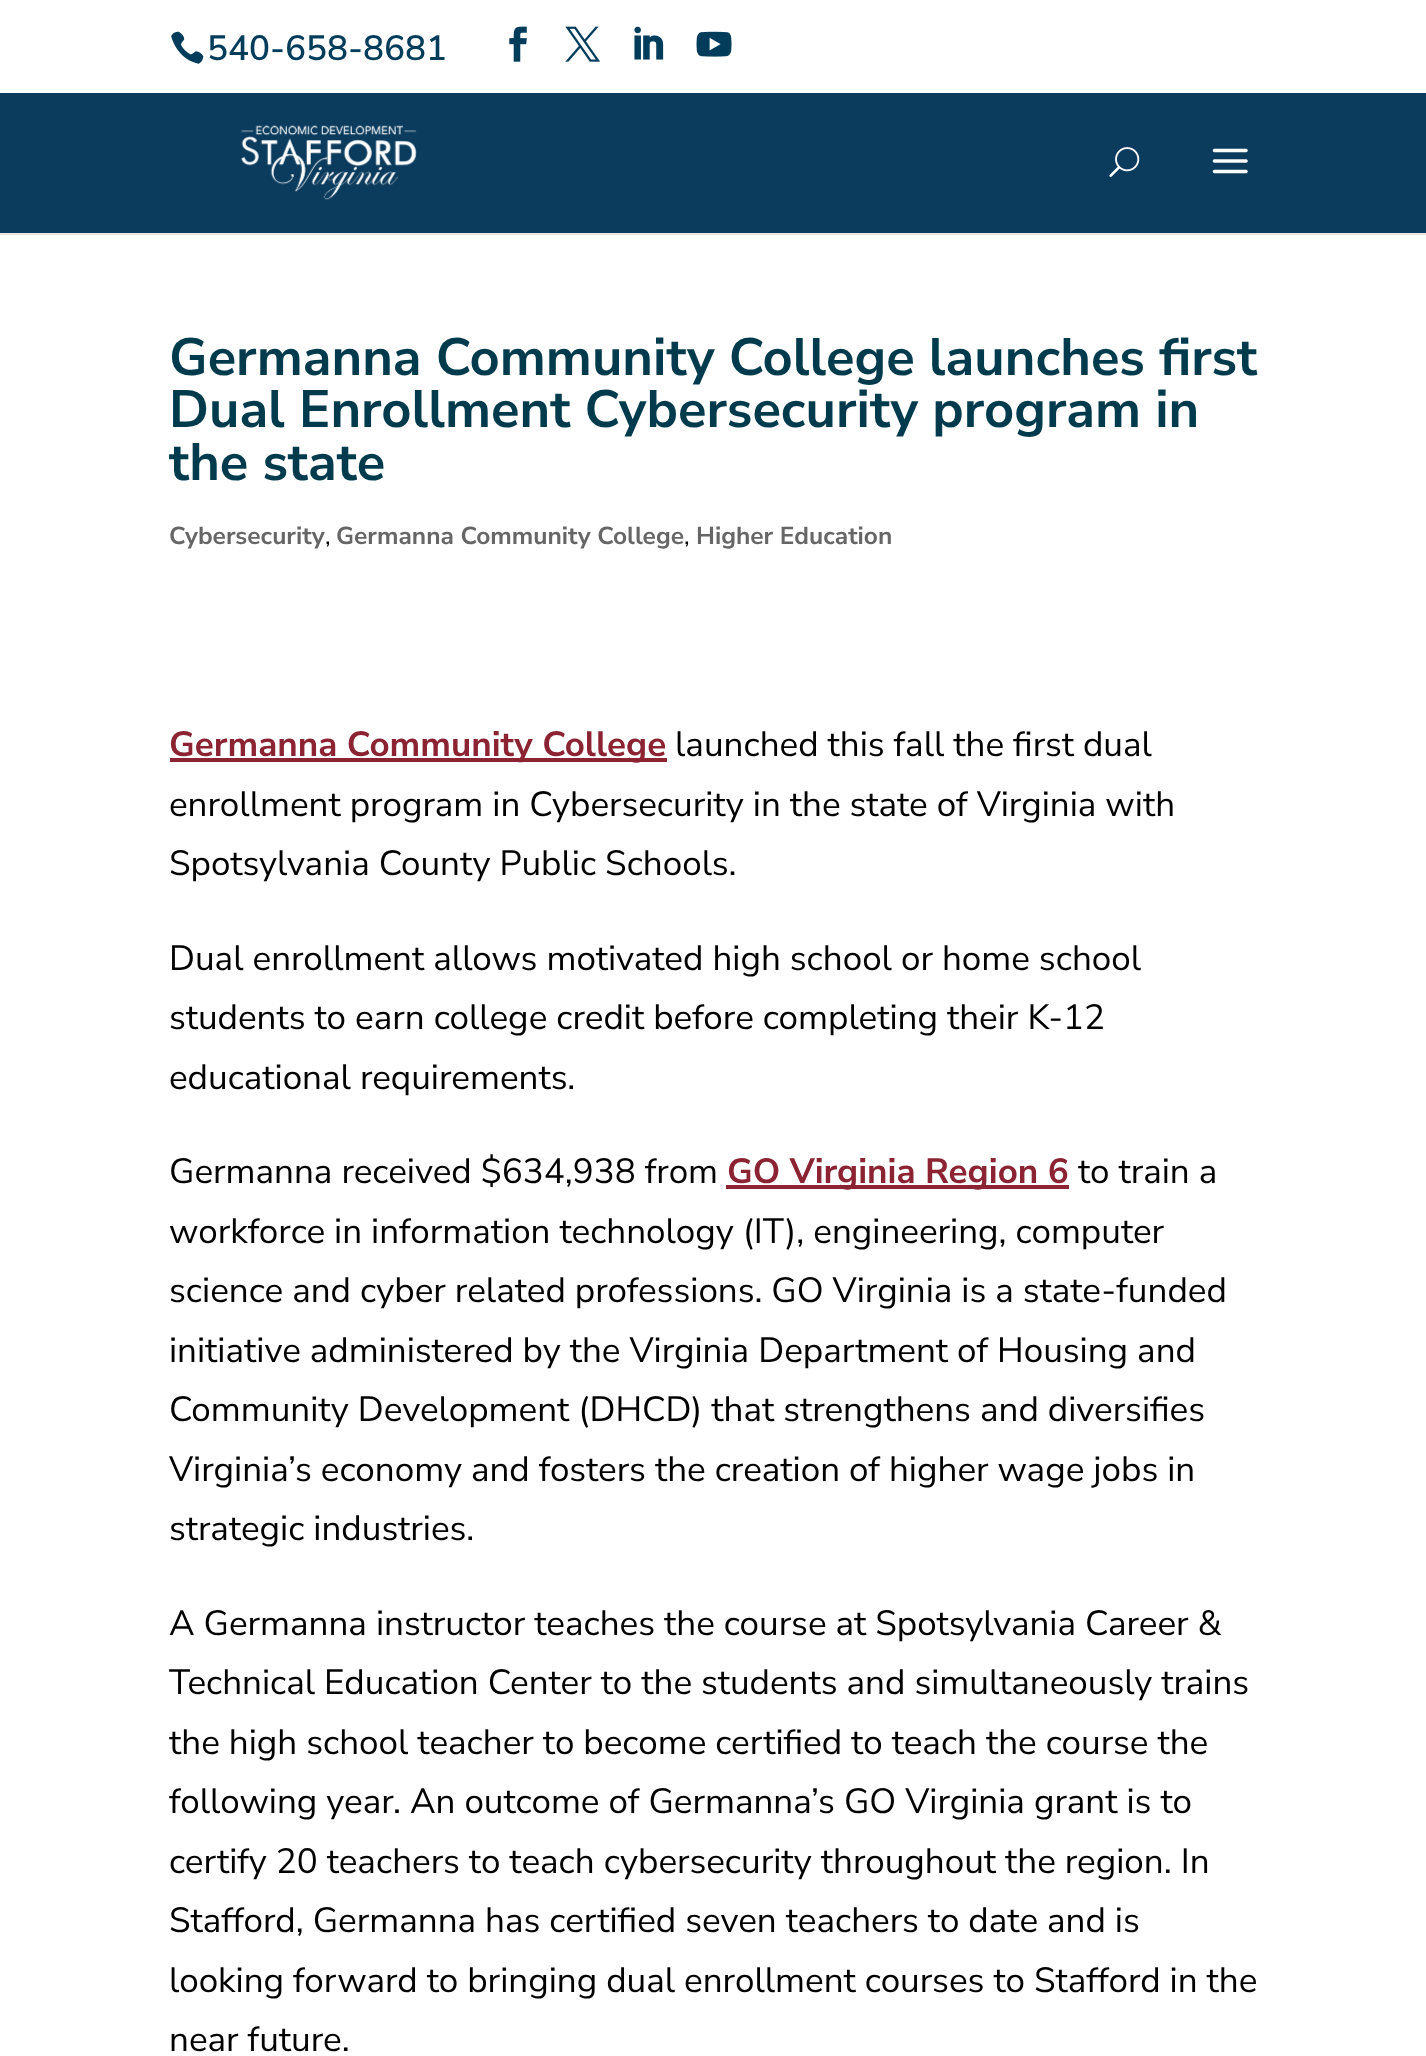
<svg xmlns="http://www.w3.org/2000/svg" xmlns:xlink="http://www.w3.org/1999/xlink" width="1426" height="2056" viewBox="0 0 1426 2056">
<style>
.cls-1{font:600 35px Nunito Sans;fill:#013c5b}
.cls-2{font:bold 52.5px Nunito Sans;fill:#003b4d}
.cls-3{font:bold 24.5px Nunito Sans;fill:#666666}
.cls-4{font:24.5px Nunito Sans;fill:#000000}
.cls-5{font:bold 35px Nunito Sans;fill:#8b2332}
.cls-6{font:35px Nunito Sans;fill:#000000}
</style>
<rect width="100%" height="100%" fill="#ffffff"/>
<image xlink:href="image0.png" x="171" y="31" width="33" height="33"/>
<image xlink:href="image1.png" x="509" y="26" width="18" height="36"/>
<image xlink:href="image2.png" x="565" y="26" width="35" height="36"/>
<image xlink:href="image3.png" x="634" y="26" width="30" height="34"/>
<image xlink:href="image4.png" x="696" y="31" width="36" height="26"/>
<rect fill="#e6e6e6" x="0" y="233" width="1426" height="2"/>
<rect fill="#0b3b5d" x="0" y="93" width="1426" height="140"/>
<image xlink:href="image5.png" x="240" y="125" width="177" height="75"/>
<image xlink:href="image6.png" x="1109" y="147" width="31" height="30"/>
<image xlink:href="image7.png" x="1212" y="148" width="36" height="26"/>
<rect fill="#8b2332" x="170" y="758" width="497" height="4"/>
<rect fill="#8b2332" x="726" y="1185" width="343" height="4"/>
<text class="cls-1" x="207" y="60">540-658-8681</text>
<text class="cls-2"><tspan x="169" y="375">Germanna Community College launches first</tspan><tspan x="169" y="427">Dual Enrollment Cybersecurity program in</tspan><tspan x="169" y="480">the state</tspan></text>
<text class="cls-3" x="169" y="544">Cybersecurity</text>
<text class="cls-4" x="325" y="544">,</text>
<text class="cls-3" x="336" y="544">Germanna Community College</text>
<text class="cls-4" x="684" y="544">,</text>
<text class="cls-3" x="696" y="544">Higher Education</text>
<text class="cls-5" x="169" y="756">Germanna Community College</text>
<text class="cls-6" x="675" y="756">launched this fall the first dual</text>
<text class="cls-6"><tspan x="169" y="816">enrollment program in Cybersecurity in the state of Virginia with</tspan><tspan x="169" y="875">Spotsylvania County Public Schools.</tspan></text>
<text class="cls-6"><tspan x="169" y="970">Dual enrollment allows motivated high school or home school</tspan><tspan x="169" y="1029">students to earn college credit before completing their K-12</tspan><tspan x="169" y="1089">educational requirements.</tspan></text>
<text class="cls-6" x="169" y="1183">Germanna received $634,938 from</text>
<text class="cls-5" x="727" y="1183">GO Virginia Region 6</text>
<text class="cls-6" x="1078" y="1183">to train a</text>
<text class="cls-6"><tspan x="169" y="1243">workforce in information technology (IT), engineering, computer</tspan><tspan x="169" y="1302">science and cyber related professions. GO Virginia is a state-funded</tspan><tspan x="169" y="1362">initiative administered by the Virginia Department of Housing and</tspan><tspan x="169" y="1421">Community Development (DHCD) that strengthens and diversifies</tspan><tspan x="169" y="1481">Virginia’s economy and fosters the creation of higher wage jobs in</tspan><tspan x="169" y="1540">strategic industries.</tspan></text>
<text class="cls-6"><tspan x="169" y="1635">A Germanna instructor teaches the course at Spotsylvania Career &amp;</tspan><tspan x="169" y="1694">Technical Education Center to the students and simultaneously trains</tspan><tspan x="169" y="1754">the high school teacher to become certified to teach the course the</tspan><tspan x="169" y="1813">following year. An outcome of Germanna’s GO Virginia grant is to</tspan><tspan x="169" y="1873">certify 20 teachers to teach cybersecurity throughout the region. In</tspan><tspan x="169" y="1932">Stafford, Germanna has certified seven teachers to date and is</tspan><tspan x="169" y="1992">looking forward to bringing dual enrollment courses to Stafford in the</tspan><tspan x="169" y="2051">near future.</tspan></text>
</svg>
